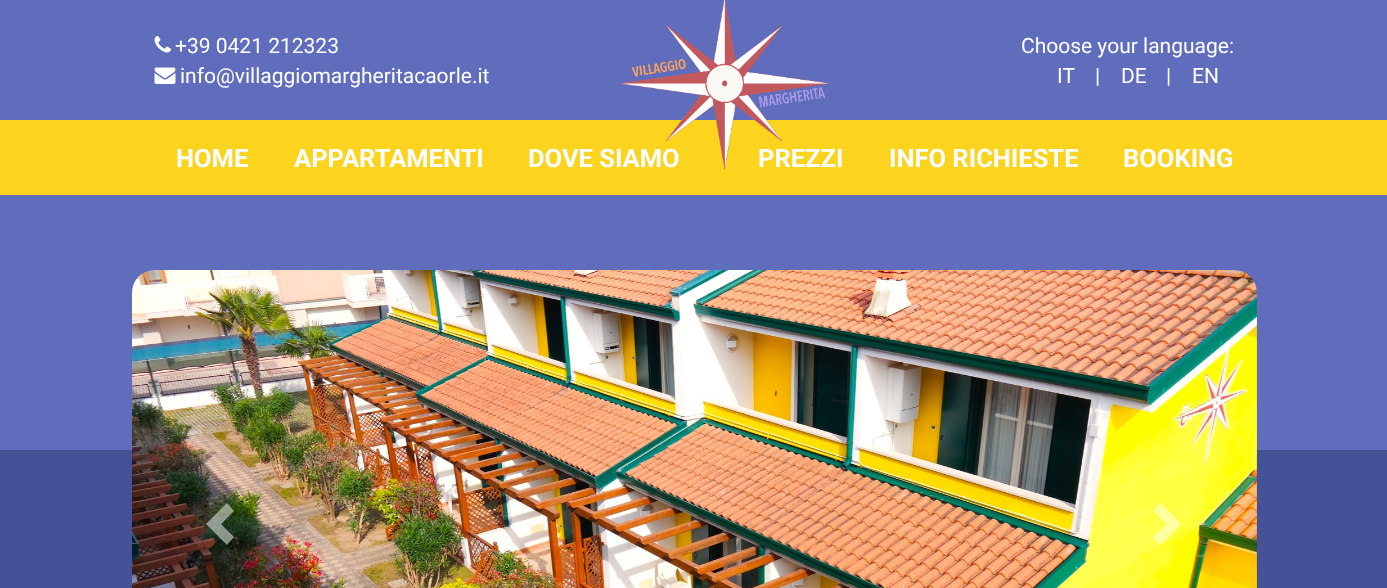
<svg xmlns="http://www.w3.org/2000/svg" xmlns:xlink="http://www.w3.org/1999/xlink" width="1387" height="588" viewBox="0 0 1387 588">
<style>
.cls-1{font:21px Roboto;fill:#ffffff}
.cls-2{font:bold 25.5px Roboto;fill:#ffffff}
</style>
<rect width="100%" height="100%" fill="#606dbc"/>
<rect fill="#465298" x="0" y="450" width="1387" height="138"/>
<rect fill="#fcd31d" x="0" y="120" width="1387" height="75"/>
<image xlink:href="image0.png" x="619" y="0" width="211" height="170"/>
<image xlink:href="image1.png" x="154" y="36" width="17" height="17"/>
<image xlink:href="image2.png" x="154" y="67" width="22" height="17"/>
<image xlink:href="image3.png" x="132" y="270" width="1125" height="318"/>
<path fill="#ffffff" fill-opacity="0.5" d="M234 511L221 524L234 537L227 545L206 524L227 503Z"/>
<path fill="#ffffff" fill-opacity="0.5" d="M1181 524L1161 545L1153 537L1167 524L1153 511L1161 503Z"/>
<text class="cls-1" x="175" y="53">+39 0421 212323</text>
<text class="cls-1" x="180" y="83">info@villaggiomargheritacaorle.it</text>
<text class="cls-1" x="1021" y="53">Choose your language:</text>
<text class="cls-1" x="1057" y="83">IT</text>
<text class="cls-1" x="1095" y="83">|</text>
<text class="cls-1" x="1121" y="83">DE</text>
<text class="cls-1" x="1166" y="83">|</text>
<text class="cls-1" x="1192" y="83">EN</text>
<text class="cls-2" x="176" y="167">HOME</text>
<text class="cls-2" x="294" y="167">APPARTAMENTI</text>
<text class="cls-2" x="528" y="167">DOVE SIAMO</text>
<text class="cls-2" x="758" y="167">PREZZI</text>
<text class="cls-2" x="889" y="167">INFO RICHIESTE</text>
<text class="cls-2" x="1123" y="167">BOOKING</text>
</svg>
